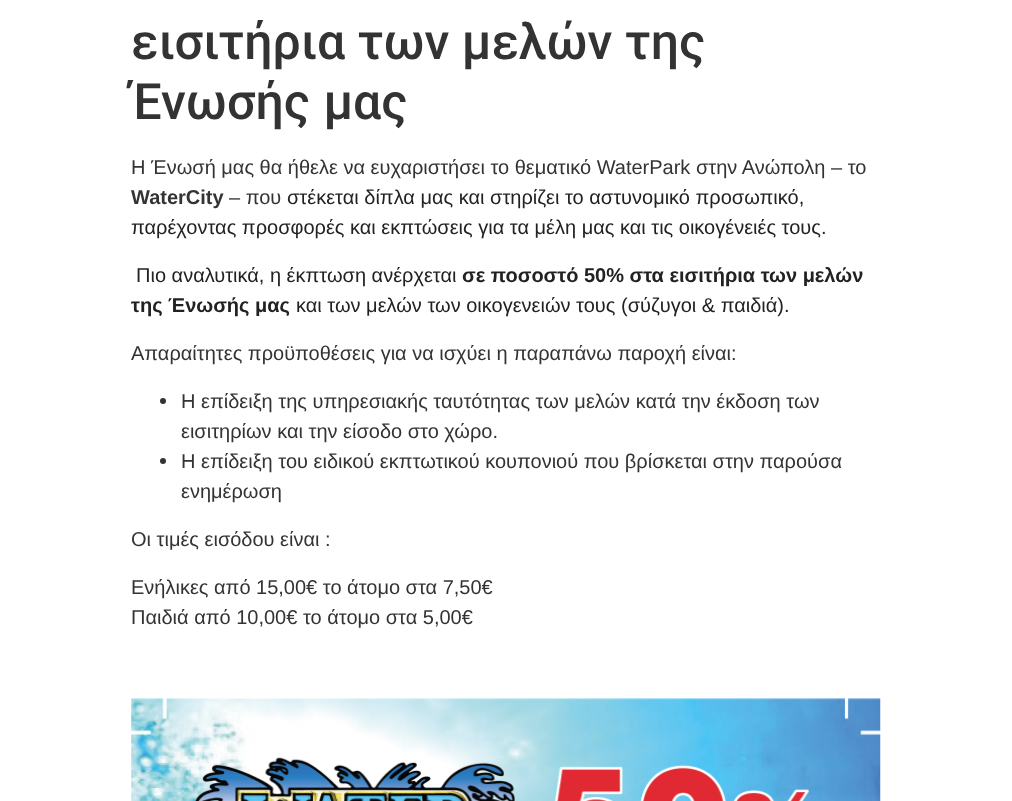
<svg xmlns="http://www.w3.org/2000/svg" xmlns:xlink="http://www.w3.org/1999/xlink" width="1012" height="801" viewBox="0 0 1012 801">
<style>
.cls-1{font:500 50px Roboto;fill:#333333}
.cls-2{font:20px Liberation Sans;fill:#333333}
.cls-3{font:bold 20px Liberation Sans;fill:#333333}
.cls-4{font:20px Liberation Sans;fill:#222222}
.cls-5{font:bold 20px Liberation Sans;fill:#222222}
</style>
<rect width="100%" height="100%" fill="#ffffff"/>
<circle fill="#333333" cx="163" cy="401" r="3"/>
<circle fill="#333333" cx="163" cy="461" r="3"/>
<image xlink:href="image0.png" x="131" y="698" width="750" height="103"/>
<text class="cls-1"><tspan x="131" y="59">εισιτήρια των μελών της</tspan><tspan x="131" y="119" word-spacing="1">Ένωσής μας</tspan></text>
<text class="cls-2" x="131" y="174">Η Ένωσή μας θα ήθελε να ευχαριστήσει το θεματικό WaterPark στην Ανώπολη – το</text>
<text class="cls-3" x="131" y="204">WaterCity</text>
<text class="cls-2" x="229" y="204">– που</text>
<text class="cls-4" x="287" y="204">στέκεται δίπλα μας και στηρίζει το αστυνομικό προσωπικό,</text>
<text class="cls-4" x="131" y="234">παρέχοντας προσφορές και εκπτώσεις για τα μέλη μας και τις οικογένειές τους.</text>
<text class="cls-4" x="136" y="282">Πιο αναλυτικά, η έκπτωση ανέρχεται</text>
<text class="cls-5" x="462" y="282">σε ποσοστό 50% στα εισιτήρια των μελών</text>
<text class="cls-5" x="131" y="312">της Ένωσής μας</text>
<text class="cls-4" x="296" y="312">και των μελών των οικογενειών τους (σύζυγοι &amp; παιδιά).</text>
<text class="cls-2" x="131" y="360">Απαραίτητες προϋποθέσεις για να ισχύει η παραπάνω παροχή είναι:</text>
<text class="cls-2"><tspan x="181" y="408">Η επίδειξη της υπηρεσιακής ταυτότητας των μελών κατά την έκδοση των</tspan><tspan x="181" y="438">εισιτηρίων και την είσοδο στο χώρο.</tspan><tspan x="181" y="468">H επίδειξη του ειδικού εκπτωτικού κουπονιού που βρίσκεται στην παρούσα</tspan><tspan x="181" y="498">ενημέρωση</tspan></text>
<text class="cls-2" x="131" y="546">Οι τιμές εισόδου είναι :</text>
<text class="cls-2"><tspan x="131" y="594">Ενήλικες από 15,00€ το άτομο στα 7,50€</tspan><tspan x="131" y="624">Παιδιά από 10,00€ το άτομο στα 5,00€</tspan></text>
</svg>
